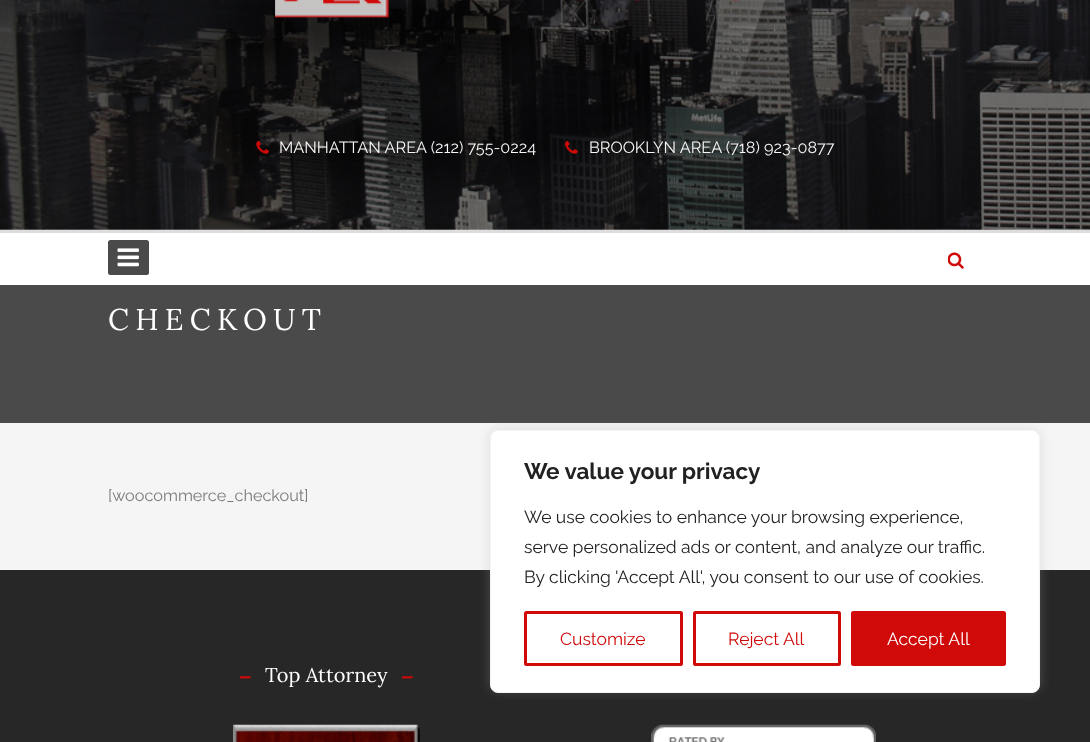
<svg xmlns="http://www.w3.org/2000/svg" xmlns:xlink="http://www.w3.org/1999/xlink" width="1090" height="742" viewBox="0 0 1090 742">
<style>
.cls-1{font:16.25px Raleway;fill:#f7f7f7}
.cls-2{font:30px Lora;letter-spacing:6.25px;fill:#ffffff}
.cls-3{font:16.25px Raleway;fill:#7a7a7a}
.cls-4{font:30px Lora;fill:#d00909}
.cls-5{font:20px Lora;fill:#ffffff}
.cls-6{font:bold 22.5px Raleway;fill:#212121}
.cls-7{font:17.5px Raleway;fill:#212121}
.cls-8{font:17.5px Raleway;fill:#d00909}
.cls-9{font:17.5px Raleway;fill:#ffffff}
</style>
<rect width="100%" height="100%" fill="#ffffff"/>
<image xlink:href="image0.png" x="0" y="0" width="1090" height="230"/>
<image xlink:href="image1.png" x="275" y="0" width="464" height="18"/>
<image xlink:href="image2.png" x="256" y="141" width="13" height="13"/>
<image xlink:href="image3.png" x="565" y="141" width="13" height="13"/>
<rect fill="#dddddd" x="0" y="230" width="1090" height="3"/>
<rect fill="#4a4a4a" x="108" y="240" width="41" height="35" rx="2.5"/>
<image xlink:href="image4.png" x="117" y="248" width="22" height="19"/>
<image xlink:href="image5.png" x="948" y="252" width="16" height="17"/>
<rect fill="#4a4a4a" x="0" y="285" width="1090" height="138"/>
<rect fill="#f5f5f5" x="0" y="423" width="1090" height="147"/>
<rect fill="#272727" x="0" y="570" width="1090" height="172"/>
<image xlink:href="image6.png" x="233" y="724" width="187" height="18"/>
<image xlink:href="image7.png" x="651" y="724" width="225" height="18"/>
<rect fill="#acabab" fill-opacity="0.3" filter="blur(6px)" x="490" y="429" width="550" height="262" rx="8"/>
<rect fill="#ffffff" stroke="#f4f4f4" x="490.5" y="430.5" width="549" height="262" rx="7.5"/>
<rect fill="none" stroke="#d00909" stroke-width="3" x="525.5" y="612.5" width="156" height="52" rx="1"/>
<rect fill="none" stroke="#d00909" stroke-width="3" x="694.5" y="612.5" width="145" height="52" rx="1"/>
<rect fill="#d00909" stroke="#d00909" stroke-width="3" x="852.5" y="612.5" width="152" height="52" rx="1"/>
<text class="cls-1" x="279" y="153">MANHATTAN AREA (212) 755-0224</text>
<text class="cls-1" x="589" y="153">BROOKLYN AREA (718) 923-0877</text>
<text class="cls-2" x="108" y="330">CHECKOUT</text>
<text class="cls-3" x="108" y="501">[woocommerce_checkout]</text>
<text class="cls-4" x="238" y="687">-</text>
<text class="cls-5" x="265" y="682">Top Attorney</text>
<text class="cls-4" x="400" y="687">-</text>
<text class="cls-6" x="524" y="479">We value your privacy</text>
<text class="cls-7"><tspan x="524" y="523">We use cookies to enhance your browsing experience,</tspan><tspan x="524" y="553">serve personalized ads or content, and analyze our traffic.</tspan><tspan x="524" y="583">By clicking 'Accept All', you consent to our use of cookies.</tspan></text>
<text class="cls-8" x="560" y="645">Customize</text>
<text class="cls-8" x="728" y="645">Reject All</text>
<text class="cls-9" x="887" y="645">Accept All</text>
</svg>
